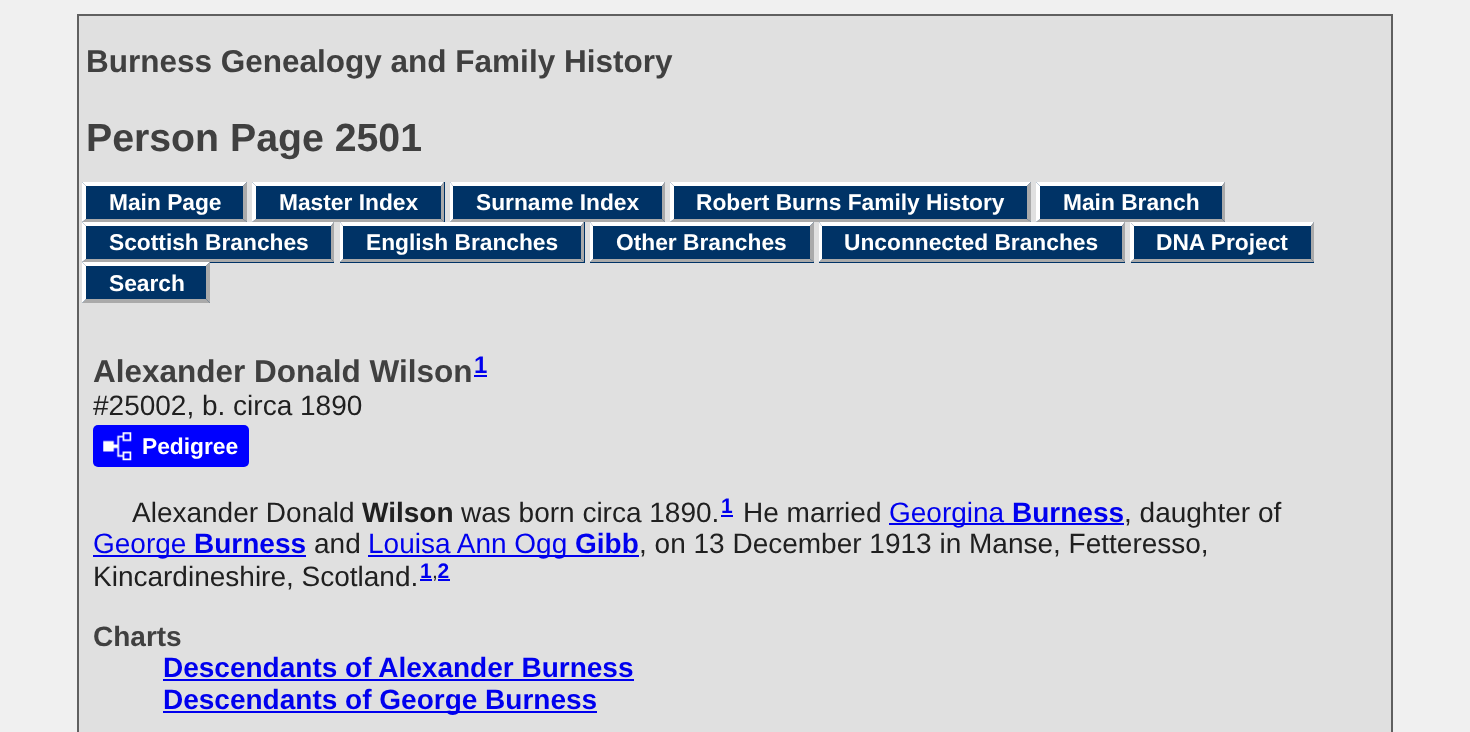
<svg xmlns="http://www.w3.org/2000/svg" xmlns:xlink="http://www.w3.org/1999/xlink" width="1470" height="732" viewBox="0 0 1470 732">
<style>
.cls-1{font:bold 31.5px Liberation Sans;fill:#404040}
.cls-2{font:bold 39.25px Liberation Sans;fill:#404040}
.cls-3{font:bold 22.75px Liberation Sans;fill:#ffffff}
.cls-4{font:bold 24px Liberation Sans;fill:#0000ee}
.cls-5{font:28px Liberation Sans;fill:#202020}
.cls-6{font:bold 28px Liberation Sans;fill:#202020}
.cls-7{font:bold 21px Liberation Sans;fill:#0000ee}
.cls-8{font:28px Liberation Sans;fill:#0000ee}
.cls-9{font:bold 28px Liberation Sans;fill:#0000ee}
.cls-10{font:21px Liberation Sans;fill:#202020}
.cls-11{font:bold 28px Liberation Sans;fill:#404040}
</style>
<rect width="100%" height="100%" fill="#f0f0f0"/>
<rect fill="#e0e0e0" stroke="#606060" stroke-width="2" x="78" y="15" width="1314" height="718"/>
<rect fill="#003366" x="82" y="182" width="165" height="40"/>
<path fill="#ffffff" d="M82 182H247L243 186H86Z"/>
<path fill="#aaaaaa" d="M247 182V222L243 219V186Z"/>
<path fill="#aaaaaa" d="M247 222H82L86 219H243Z"/>
<path fill="#ffffff" d="M82 222V182L86 186V219Z"/>
<rect fill="#003366" x="252" y="182" width="193" height="40"/>
<path fill="#ffffff" d="M252 182H444L441 186H256Z"/>
<path fill="#aaaaaa" d="M444 182V222L441 219V186Z"/>
<path fill="#aaaaaa" d="M444 222H252L256 219H441Z"/>
<path fill="#ffffff" d="M252 222V182L256 186V219Z"/>
<rect fill="#003366" x="450" y="182" width="215" height="40"/>
<path fill="#ffffff" d="M450 182H665L662 186H453Z"/>
<path fill="#aaaaaa" d="M665 182V222L662 219V186Z"/>
<path fill="#aaaaaa" d="M665 222H450L453 219H662Z"/>
<path fill="#ffffff" d="M450 222V182L453 186V219Z"/>
<rect fill="#003366" x="670" y="182" width="361" height="40"/>
<path fill="#ffffff" d="M670 182H1031L1027 186H674Z"/>
<path fill="#aaaaaa" d="M1031 182V222L1027 219V186Z"/>
<path fill="#aaaaaa" d="M1031 222H670L674 219H1027Z"/>
<path fill="#ffffff" d="M670 222V182L674 186V219Z"/>
<rect fill="#003366" x="1036" y="182" width="189" height="40"/>
<path fill="#ffffff" d="M1036 182H1225L1222 186H1040Z"/>
<path fill="#aaaaaa" d="M1225 182V222L1222 219V186Z"/>
<path fill="#aaaaaa" d="M1225 222H1036L1040 219H1222Z"/>
<path fill="#ffffff" d="M1036 222V182L1040 186V219Z"/>
<rect fill="#003366" x="82" y="222" width="252" height="41"/>
<path fill="#ffffff" d="M82 222H334L331 226H86Z"/>
<path fill="#aaaaaa" d="M334 222V262L331 259V226Z"/>
<path fill="#aaaaaa" d="M334 262H82L86 259H331Z"/>
<path fill="#ffffff" d="M82 262V222L86 226V259Z"/>
<rect fill="#003366" x="340" y="222" width="245" height="41"/>
<path fill="#ffffff" d="M340 222H584L581 226H343Z"/>
<path fill="#aaaaaa" d="M584 222V262L581 259V226Z"/>
<path fill="#aaaaaa" d="M584 262H340L343 259H581Z"/>
<path fill="#ffffff" d="M340 262V222L343 226V259Z"/>
<rect fill="#003366" x="590" y="222" width="224" height="41"/>
<path fill="#ffffff" d="M590 222H814L810 226H593Z"/>
<path fill="#aaaaaa" d="M814 222V262L810 259V226Z"/>
<path fill="#aaaaaa" d="M814 262H590L593 259H810Z"/>
<path fill="#ffffff" d="M590 262V222L593 226V259Z"/>
<rect fill="#003366" x="819" y="222" width="306" height="41"/>
<path fill="#ffffff" d="M819 222H1125L1122 226H822Z"/>
<path fill="#aaaaaa" d="M1125 222V262L1122 259V226Z"/>
<path fill="#aaaaaa" d="M1125 262H819L822 259H1122Z"/>
<path fill="#ffffff" d="M819 262V222L822 226V259Z"/>
<rect fill="#003366" x="1131" y="222" width="183" height="41"/>
<path fill="#ffffff" d="M1130 222H1314L1311 226H1134Z"/>
<path fill="#aaaaaa" d="M1314 222V262L1311 259V226Z"/>
<path fill="#aaaaaa" d="M1314 262H1130L1134 259H1311Z"/>
<path fill="#ffffff" d="M1130 262V222L1134 226V259Z"/>
<rect fill="#003366" x="82" y="263" width="128" height="40"/>
<path fill="#ffffff" d="M82 262H210L206 266H86Z"/>
<path fill="#aaaaaa" d="M210 262V303L206 299V266Z"/>
<path fill="#aaaaaa" d="M210 303H82L86 299H206Z"/>
<path fill="#ffffff" d="M82 303V262L86 266V299Z"/>
<rect fill="#0000ee" x="474" y="375" width="13" height="2"/>
<rect fill="#0000ff" x="93" y="425" width="156" height="42" rx="5"/>
<image xlink:href="image0.png" x="103" y="432" width="29" height="29"/>
<rect fill="#0000ee" x="721" y="515" width="12" height="2"/>
<rect fill="#0000ee" x="889" y="523" width="235" height="2"/>
<rect fill="#0000ee" x="93" y="555" width="213" height="2"/>
<rect fill="#0000ee" x="368" y="555" width="271" height="2"/>
<rect fill="#0000ee" x="420" y="579" width="12" height="2"/>
<rect fill="#0000ee" x="438" y="579" width="12" height="2"/>
<rect fill="#0000ee" x="163" y="679" width="471" height="2"/>
<rect fill="#0000ee" x="163" y="711" width="434" height="2"/>
<text class="cls-1" x="86" y="72">Burness Genealogy and Family History</text>
<text class="cls-2" x="86" y="151">Person Page 2501</text>
<text class="cls-3" x="109" y="210">Main Page</text>
<text class="cls-3" x="279" y="210">Master Index</text>
<text class="cls-3" x="476" y="210">Surname Index</text>
<text class="cls-3" x="696" y="210">Robert Burns Family History</text>
<text class="cls-3" x="1063" y="210">Main Branch</text>
<text class="cls-3" x="109" y="250">Scottish Branches</text>
<text class="cls-3" x="366" y="250">English Branches</text>
<text class="cls-3" x="616" y="250">Other Branches</text>
<text class="cls-3" x="844" y="250">Unconnected Branches</text>
<text class="cls-3" x="1156" y="250">DNA Project</text>
<text class="cls-3" x="109" y="291">Search</text>
<text class="cls-1" x="93" y="382">Alexander Donald Wilson</text>
<text class="cls-4" x="474" y="373">1</text>
<text class="cls-5" x="93" y="415">#25002, b. circa 1890</text>
<text class="cls-3" x="142" y="454">Pedigree</text>
<text class="cls-5" x="132" y="522">Alexander Donald</text>
<text class="cls-6" x="362" y="522">Wilson</text>
<text class="cls-5" x="461" y="522">was born circa 1890.</text>
<text class="cls-7" x="721" y="513">1</text>
<text class="cls-5" x="743" y="522">He married</text>
<text class="cls-8" x="889" y="522">Georgina</text>
<text class="cls-9" x="1012" y="522">Burness</text>
<text class="cls-5" x="1124" y="522">, daughter of</text>
<text class="cls-8" x="93" y="553">George</text>
<text class="cls-9" x="194" y="553">Burness</text>
<text class="cls-5" x="314" y="553">and</text>
<text class="cls-8" x="368" y="553">Louisa Ann Ogg</text>
<text class="cls-9" x="575" y="553">Gibb</text>
<text class="cls-5" x="639" y="553">, on 13 December 1913 in Manse, Fetteresso,</text>
<text class="cls-5" x="93" y="586">Kincardineshire, Scotland.</text>
<text class="cls-7" x="420" y="578">1 2</text>
<text class="cls-10" x="432" y="578">,</text>
<text class="cls-11" x="93" y="646">Charts</text>
<text class="cls-9"><tspan x="163" y="677">Descendants of Alexander Burness</tspan><tspan x="163" y="709">Descendants of George Burness</tspan></text>
</svg>
